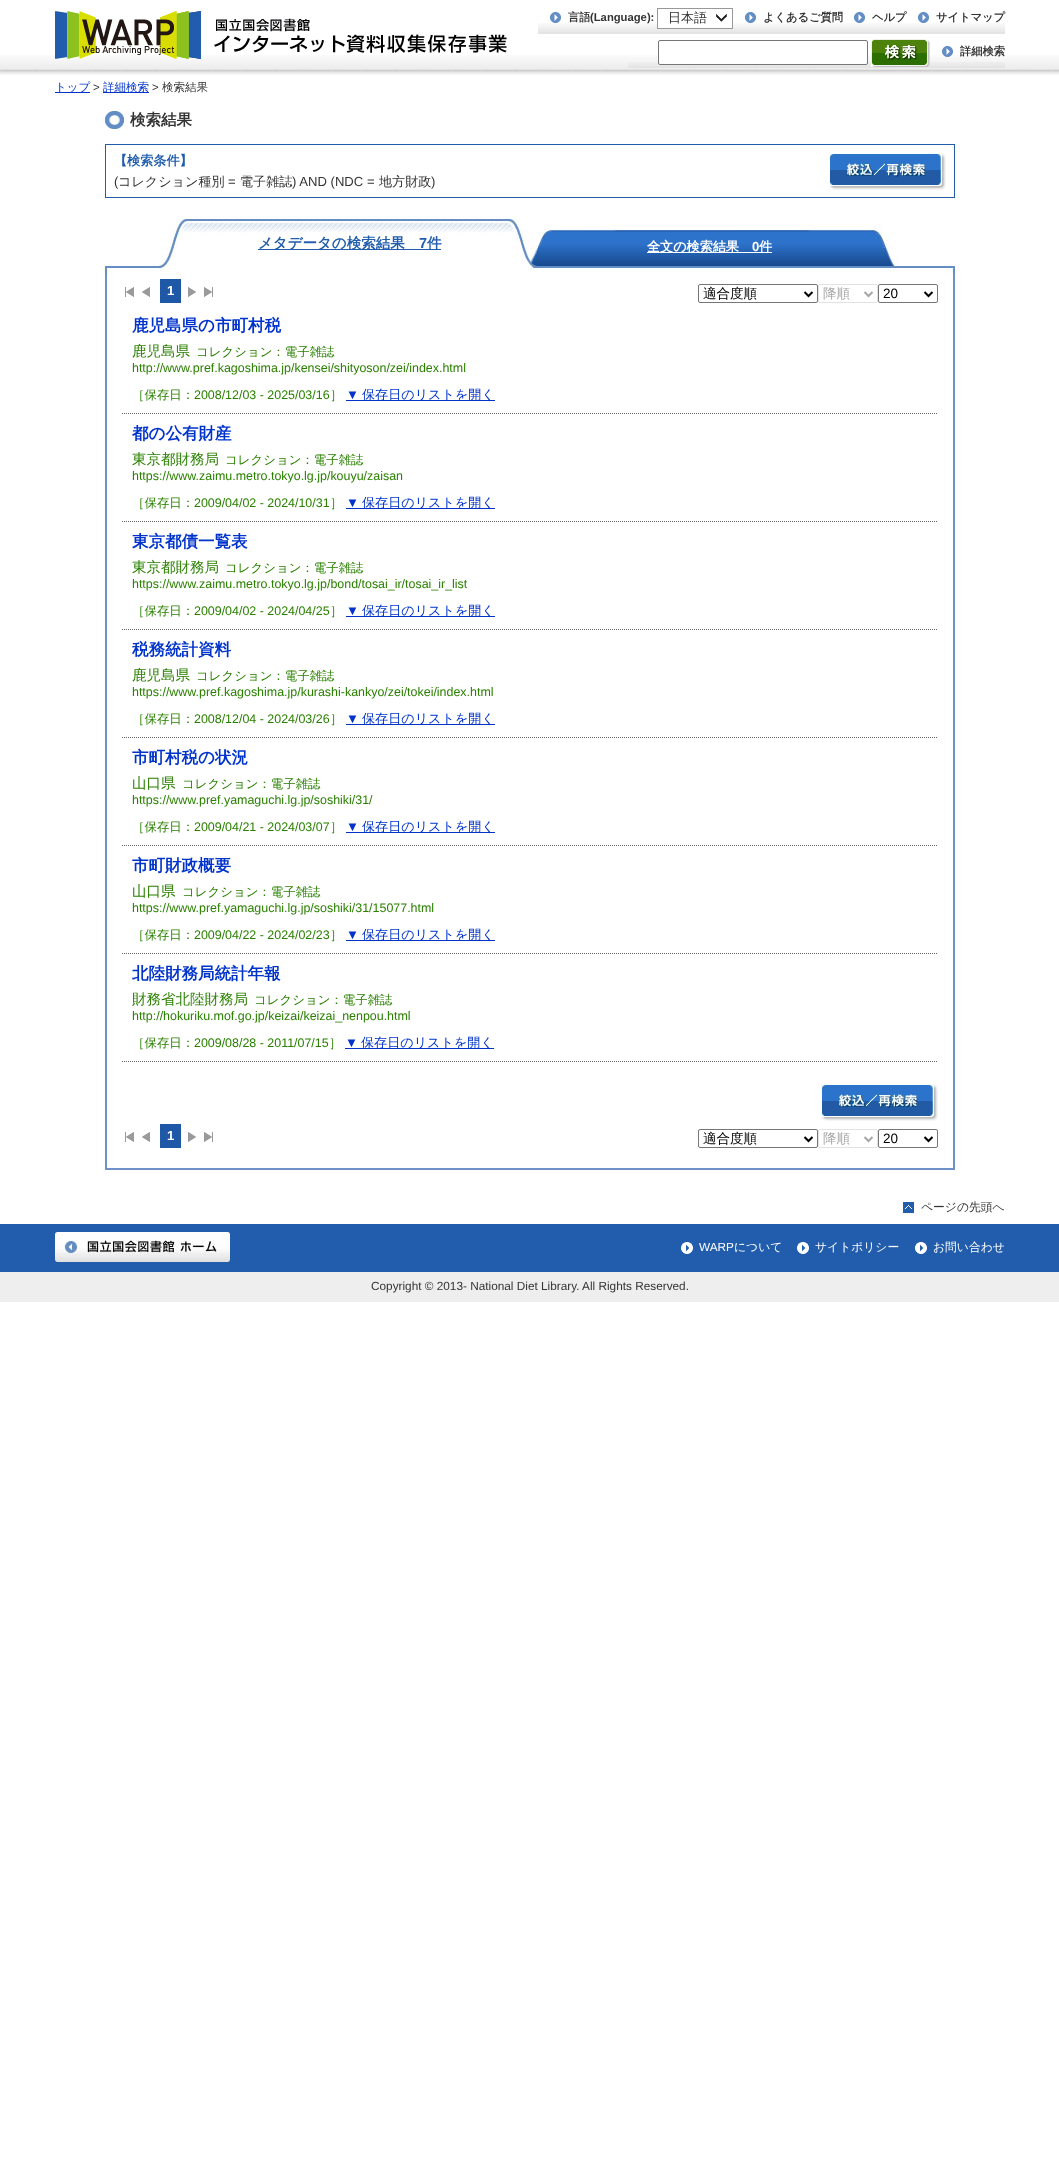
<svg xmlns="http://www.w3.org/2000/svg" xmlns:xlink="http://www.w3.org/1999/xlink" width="1059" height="2157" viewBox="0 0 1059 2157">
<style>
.cls-1{font:bold 11.25px WenQuanYi Zen Hei;fill:#333333}
.cls-2{font:bold 11.25px Liberation Sans;fill:#333333}
.cls-3{font:500 13px WenQuanYi Zen Hei;fill:#333333}
.cls-4{font:500 11.5px WenQuanYi Zen Hei;fill:#0033cc}
.cls-5{font:11.5px Liberation Sans;fill:#333333}
.cls-6{font:500 11.5px WenQuanYi Zen Hei;fill:#333333}
.cls-7{font:bold 15.5px WenQuanYi Zen Hei;fill:#333333}
.cls-8{font:bold 13.1px WenQuanYi Zen Hei;fill:#215dac}
.cls-9{font:13.1px Liberation Sans;fill:#333333}
.cls-10{font:500 13.1px WenQuanYi Zen Hei;fill:#333333}
.cls-11{font:bold 14.5px WenQuanYi Zen Hei;fill:#215dac}
.cls-12{font:bold 14.5px Liberation Sans;fill:#215dac}
.cls-13{font:bold 13.1px WenQuanYi Zen Hei;fill:#ffffff}
.cls-14{font:bold 13.1px Liberation Sans;fill:#ffffff}
.cls-15{font:500 13.5px WenQuanYi Zen Hei;fill:#000000}
.cls-16{font:500 13.5px WenQuanYi Zen Hei;fill:#a6a6a6}
.cls-17{font:13.5px Liberation Sans;fill:#000000}
.cls-18{font:bold 16.5px WenQuanYi Zen Hei;fill:#0033cc}
.cls-19{font:500 14.5px WenQuanYi Zen Hei;fill:#2a8000}
.cls-20{font:500 12.45px WenQuanYi Zen Hei;fill:#2a8000}
.cls-21{font:12.45px Liberation Sans;fill:#2a8000}
.cls-22{font:13.1px Liberation Sans;fill:#0033cc}
.cls-23{font:500 13.1px WenQuanYi Zen Hei;fill:#0033cc}
.cls-24{font:500 11.8px WenQuanYi Zen Hei;fill:#333333}
.cls-25{font:11.8px Liberation Sans;fill:#ffffff}
.cls-26{font:500 11.8px WenQuanYi Zen Hei;fill:#ffffff}
.cls-27{font:11.8px Liberation Sans;fill:#333333}
</style>
<rect width="100%" height="100%" fill="#ffffff"/>
<image xlink:href="image0.png" x="0" y="55" width="1059" height="20"/>
<image xlink:href="image1.png" x="55" y="11" width="452" height="48"/>
<image xlink:href="image2.png" x="538" y="23" width="467" height="11"/>
<image xlink:href="image3.png" x="550" y="12" width="11" height="11"/>
<rect fill="#ffffff" x="658" y="23" width="74" height="5"/>
<image xlink:href="image4.png" x="716" y="14" width="11" height="8"/>
<rect fill="none" stroke="#999999" x="657.5" y="8.5" width="75" height="20"/>
<image xlink:href="image3.png" x="745" y="12" width="11" height="11"/>
<image xlink:href="image3.png" x="854" y="12" width="11" height="11"/>
<image xlink:href="image3.png" x="918" y="12" width="11" height="11"/>
<image xlink:href="image5.png" x="628" y="62" width="377" height="6"/>
<rect fill="#ffffff" stroke="#767676" x="658.5" y="40.5" width="209" height="24" rx="1.5"/>
<image xlink:href="image6.png" x="871" y="39" width="59" height="28"/>
<image xlink:href="image7.png" x="942" y="46" width="11" height="11"/>
<rect fill="#0033cc" x="55" y="92" width="35" height="1"/>
<rect fill="#0033cc" x="103" y="92" width="46" height="1"/>
<image xlink:href="image8.png" x="105" y="111" width="19" height="18"/>
<rect fill="none" stroke="#215dac" x="105.5" y="144.5" width="849" height="53"/>
<image xlink:href="image9.png" x="829" y="153" width="117" height="37"/>
<image xlink:href="image10.png" x="105" y="216" width="425" height="58"/>
<rect fill="#215dac" x="258" y="249" width="183" height="1"/>
<image xlink:href="image11.png" x="530" y="216" width="425" height="58"/>
<rect fill="#ffffff" x="647" y="252" width="125" height="1"/>
<rect fill="#6e91c7" x="953" y="274" width="2" height="896"/>
<rect fill="#6e91c7" x="105" y="1168" width="850" height="2"/>
<rect fill="#6e91c7" x="105" y="274" width="2" height="896"/>
<image xlink:href="image12.png" x="125" y="287" width="9" height="10"/>
<image xlink:href="image13.png" x="142" y="287" width="8" height="10"/>
<rect fill="#1f58a6" x="160" y="279" width="21" height="24"/>
<image xlink:href="image14.png" x="188" y="287" width="8" height="10"/>
<image xlink:href="image15.png" x="204" y="287" width="9" height="10"/>
<rect fill="none" stroke="#767676" x="698.5" y="284.5" width="119" height="18" rx="1.5"/>
<path fill="none" stroke="#000000" stroke-width="2" d="M804.5 292L808.5 296L812.5 292"/>
<rect fill="none" stroke="#e2e2e2" x="818.5" y="284.5" width="59" height="18" rx="1.5"/>
<path fill="none" stroke="#a6a6a6" stroke-width="2" d="M864.5 292L868.5 296L872.5 292"/>
<rect fill="none" stroke="#767676" x="878.5" y="284.5" width="59" height="18" rx="1.5"/>
<path fill="none" stroke="#000000" stroke-width="2" d="M924.5 292L928.5 296L932.5 292"/>
<path fill="none" stroke="#666666" stroke-dasharray="1 1" d="M122 413.5H938"/>
<rect fill="#0033cc" x="346" y="400" width="149" height="1"/>
<path fill="none" stroke="#666666" stroke-dasharray="1 1" d="M122 521.5H938"/>
<rect fill="#0033cc" x="346" y="508" width="149" height="1"/>
<path fill="none" stroke="#666666" stroke-dasharray="1 1" d="M122 629.5H938"/>
<rect fill="#0033cc" x="346" y="616" width="149" height="1"/>
<path fill="none" stroke="#666666" stroke-dasharray="1 1" d="M122 737.5H938"/>
<rect fill="#0033cc" x="346" y="724" width="149" height="1"/>
<path fill="none" stroke="#666666" stroke-dasharray="1 1" d="M122 845.5H938"/>
<rect fill="#0033cc" x="346" y="832" width="149" height="1"/>
<path fill="none" stroke="#666666" stroke-dasharray="1 1" d="M122 953.5H938"/>
<rect fill="#0033cc" x="346" y="940" width="149" height="1"/>
<path fill="none" stroke="#666666" stroke-dasharray="1 1" d="M122 1061.5H938"/>
<rect fill="#0033cc" x="345" y="1048" width="149" height="1"/>
<image xlink:href="image9.png" x="821" y="1084" width="117" height="37"/>
<image xlink:href="image12.png" x="125" y="1132" width="9" height="10"/>
<image xlink:href="image13.png" x="142" y="1132" width="8" height="10"/>
<rect fill="#1f58a6" x="160" y="1124" width="21" height="24"/>
<image xlink:href="image14.png" x="188" y="1132" width="8" height="10"/>
<image xlink:href="image15.png" x="204" y="1132" width="9" height="10"/>
<rect fill="none" stroke="#767676" x="698.5" y="1129.5" width="119" height="18" rx="1.5"/>
<path fill="none" stroke="#000000" stroke-width="2" d="M804.5 1137L808.5 1141L812.5 1137"/>
<rect fill="none" stroke="#e2e2e2" x="818.5" y="1129.5" width="59" height="18" rx="1.5"/>
<path fill="none" stroke="#a6a6a6" stroke-width="2" d="M864.5 1137L868.5 1141L872.5 1137"/>
<rect fill="none" stroke="#767676" x="878.5" y="1129.5" width="59" height="18" rx="1.5"/>
<path fill="none" stroke="#000000" stroke-width="2" d="M924.5 1137L928.5 1141L932.5 1137"/>
<image xlink:href="image16.png" x="903" y="1202" width="11" height="11"/>
<rect fill="#215dac" x="0" y="1224" width="1059" height="48"/>
<image xlink:href="image17.png" x="55" y="1232" width="175" height="30"/>
<image xlink:href="image18.png" x="681" y="1242" width="12" height="12"/>
<image xlink:href="image18.png" x="797" y="1242" width="12" height="12"/>
<image xlink:href="image18.png" x="915" y="1242" width="12" height="12"/>
<rect fill="#eeeeee" x="0" y="1272" width="1059" height="30"/>
<text class="cls-1" x="568" y="21">言語</text>
<text class="cls-2" x="590" y="21">(Language):</text>
<text class="cls-3" x="668" y="22">日本語</text>
<text class="cls-1" x="763" y="21">よくあるご質問</text>
<text class="cls-1" x="872" y="21">ヘルプ</text>
<text class="cls-1" x="936" y="21">サイトマップ</text>
<text class="cls-1" x="960" y="55">詳細検索</text>
<text class="cls-4" x="55" y="91">トップ</text>
<text class="cls-5" x="93" y="91">&gt;</text>
<text class="cls-4" x="103" y="91">詳細検索</text>
<text class="cls-5" x="152" y="91">&gt;</text>
<text class="cls-6" x="162" y="91">検索結果</text>
<text class="cls-7" x="130" y="125">検索結果</text>
<text class="cls-8" x="114" y="165">【検索条件】</text>
<text class="cls-9" x="114" y="186">(</text>
<text class="cls-10" x="118" y="186">コレクション種別</text>
<text class="cls-9" x="228" y="186">=</text>
<text class="cls-10" x="240" y="186">電子雑誌</text>
<text class="cls-9" x="292" y="186">) AND (NDC =</text>
<text class="cls-10" x="379" y="186">地方財政</text>
<text class="cls-9" x="431" y="186">)</text>
<text class="cls-11" x="258" y="248">メタデータの検索結果</text>
<text class="cls-12" x="419" y="248">7</text>
<text class="cls-11" x="427" y="248">件</text>
<text class="cls-13" x="647" y="251">全文の検索結果</text>
<text class="cls-14" x="752" y="251">0</text>
<text class="cls-13" x="759" y="251">件</text>
<text class="cls-14" x="167" y="295">1</text>
<text class="cls-15" x="703" y="298">適合度順</text>
<text class="cls-16" x="823" y="298">降順</text>
<text class="cls-17" x="883" y="298">20</text>
<text class="cls-18" x="132" y="331">鹿児島県の市町村税</text>
<text class="cls-19" x="132" y="356">鹿児島県</text>
<text class="cls-20" x="196" y="356">コレクション：電子雑誌</text>
<text class="cls-21" x="132" y="372">http://www.pref.kagoshima.jp/kensei/shityoson/zei/index.html</text>
<text class="cls-20" x="132" y="399">［保存日：</text>
<text class="cls-21" x="194" y="399">2008/12/03 - 2025/03/16</text>
<text class="cls-20" x="330" y="399">］</text>
<text class="cls-22" x="346" y="399">▼</text>
<text class="cls-23" x="362" y="399">保存日のリストを開く</text>
<text class="cls-18" x="132" y="439">都の公有財産</text>
<text class="cls-19" x="132" y="464">東京都財務局</text>
<text class="cls-20" x="225" y="464">コレクション：電子雑誌</text>
<text class="cls-21" x="132" y="480">https://www.zaimu.metro.tokyo.lg.jp/kouyu/zaisan</text>
<text class="cls-20" x="132" y="507">［保存日：</text>
<text class="cls-21" x="194" y="507">2009/04/02 - 2024/10/31</text>
<text class="cls-20" x="330" y="507">］</text>
<text class="cls-22" x="346" y="507">▼</text>
<text class="cls-23" x="362" y="507">保存日のリストを開く</text>
<text class="cls-18" x="132" y="547">東京都債一覧表</text>
<text class="cls-19" x="132" y="572">東京都財務局</text>
<text class="cls-20" x="225" y="572">コレクション：電子雑誌</text>
<text class="cls-21" x="132" y="588">https://www.zaimu.metro.tokyo.lg.jp/bond/tosai_ir/tosai_ir_list</text>
<text class="cls-20" x="132" y="615">［保存日：</text>
<text class="cls-21" x="194" y="615">2009/04/02 - 2024/04/25</text>
<text class="cls-20" x="330" y="615">］</text>
<text class="cls-22" x="346" y="615">▼</text>
<text class="cls-23" x="362" y="615">保存日のリストを開く</text>
<text class="cls-18" x="132" y="655">税務統計資料</text>
<text class="cls-19" x="132" y="680">鹿児島県</text>
<text class="cls-20" x="196" y="680">コレクション：電子雑誌</text>
<text class="cls-21" x="132" y="696">https://www.pref.kagoshima.jp/kurashi-kankyo/zei/tokei/index.html</text>
<text class="cls-20" x="132" y="723">［保存日：</text>
<text class="cls-21" x="194" y="723">2008/12/04 - 2024/03/26</text>
<text class="cls-20" x="330" y="723">］</text>
<text class="cls-22" x="346" y="723">▼</text>
<text class="cls-23" x="362" y="723">保存日のリストを開く</text>
<text class="cls-18" x="132" y="763">市町村税の状況</text>
<text class="cls-19" x="132" y="788">山口県</text>
<text class="cls-20" x="182" y="788">コレクション：電子雑誌</text>
<text class="cls-21" x="132" y="804">https://www.pref.yamaguchi.lg.jp/soshiki/31/</text>
<text class="cls-20" x="132" y="831">［保存日：</text>
<text class="cls-21" x="194" y="831">2009/04/21 - 2024/03/07</text>
<text class="cls-20" x="330" y="831">］</text>
<text class="cls-22" x="346" y="831">▼</text>
<text class="cls-23" x="362" y="831">保存日のリストを開く</text>
<text class="cls-18" x="132" y="871">市町財政概要</text>
<text class="cls-19" x="132" y="896">山口県</text>
<text class="cls-20" x="182" y="896">コレクション：電子雑誌</text>
<text class="cls-21" x="132" y="912">https://www.pref.yamaguchi.lg.jp/soshiki/31/15077.html</text>
<text class="cls-20" x="132" y="939">［保存日：</text>
<text class="cls-21" x="194" y="939">2009/04/22 - 2024/02/23</text>
<text class="cls-20" x="330" y="939">］</text>
<text class="cls-22" x="346" y="939">▼</text>
<text class="cls-23" x="362" y="939">保存日のリストを開く</text>
<text class="cls-18" x="132" y="979">北陸財務局統計年報</text>
<text class="cls-19" x="132" y="1004">財務省北陸財務局</text>
<text class="cls-20" x="254" y="1004">コレクション：電子雑誌</text>
<text class="cls-21" x="132" y="1020">http://hokuriku.mof.go.jp/keizai/keizai_nenpou.html</text>
<text class="cls-20" x="132" y="1047">［保存日：</text>
<text class="cls-21" x="194" y="1047">2009/08/28 - 2011/07/15</text>
<text class="cls-20" x="329" y="1047">］</text>
<text class="cls-22" x="345" y="1047">▼</text>
<text class="cls-23" x="361" y="1047">保存日のリストを開く</text>
<text class="cls-14" x="167" y="1140">1</text>
<text class="cls-15" x="703" y="1143">適合度順</text>
<text class="cls-16" x="823" y="1143">降順</text>
<text class="cls-17" x="883" y="1143">20</text>
<text class="cls-24" x="921" y="1211">ページの先頭へ</text>
<text class="cls-25" x="699" y="1251">WARP</text>
<text class="cls-26" x="734" y="1251">について</text>
<text class="cls-26" x="815" y="1251">サイトポリシー</text>
<text class="cls-26" x="933" y="1251">お問い合わせ</text>
<text class="cls-27" x="371" y="1290">Copyright © 2013- National Diet Library. All Rights Reserved.</text>
</svg>
